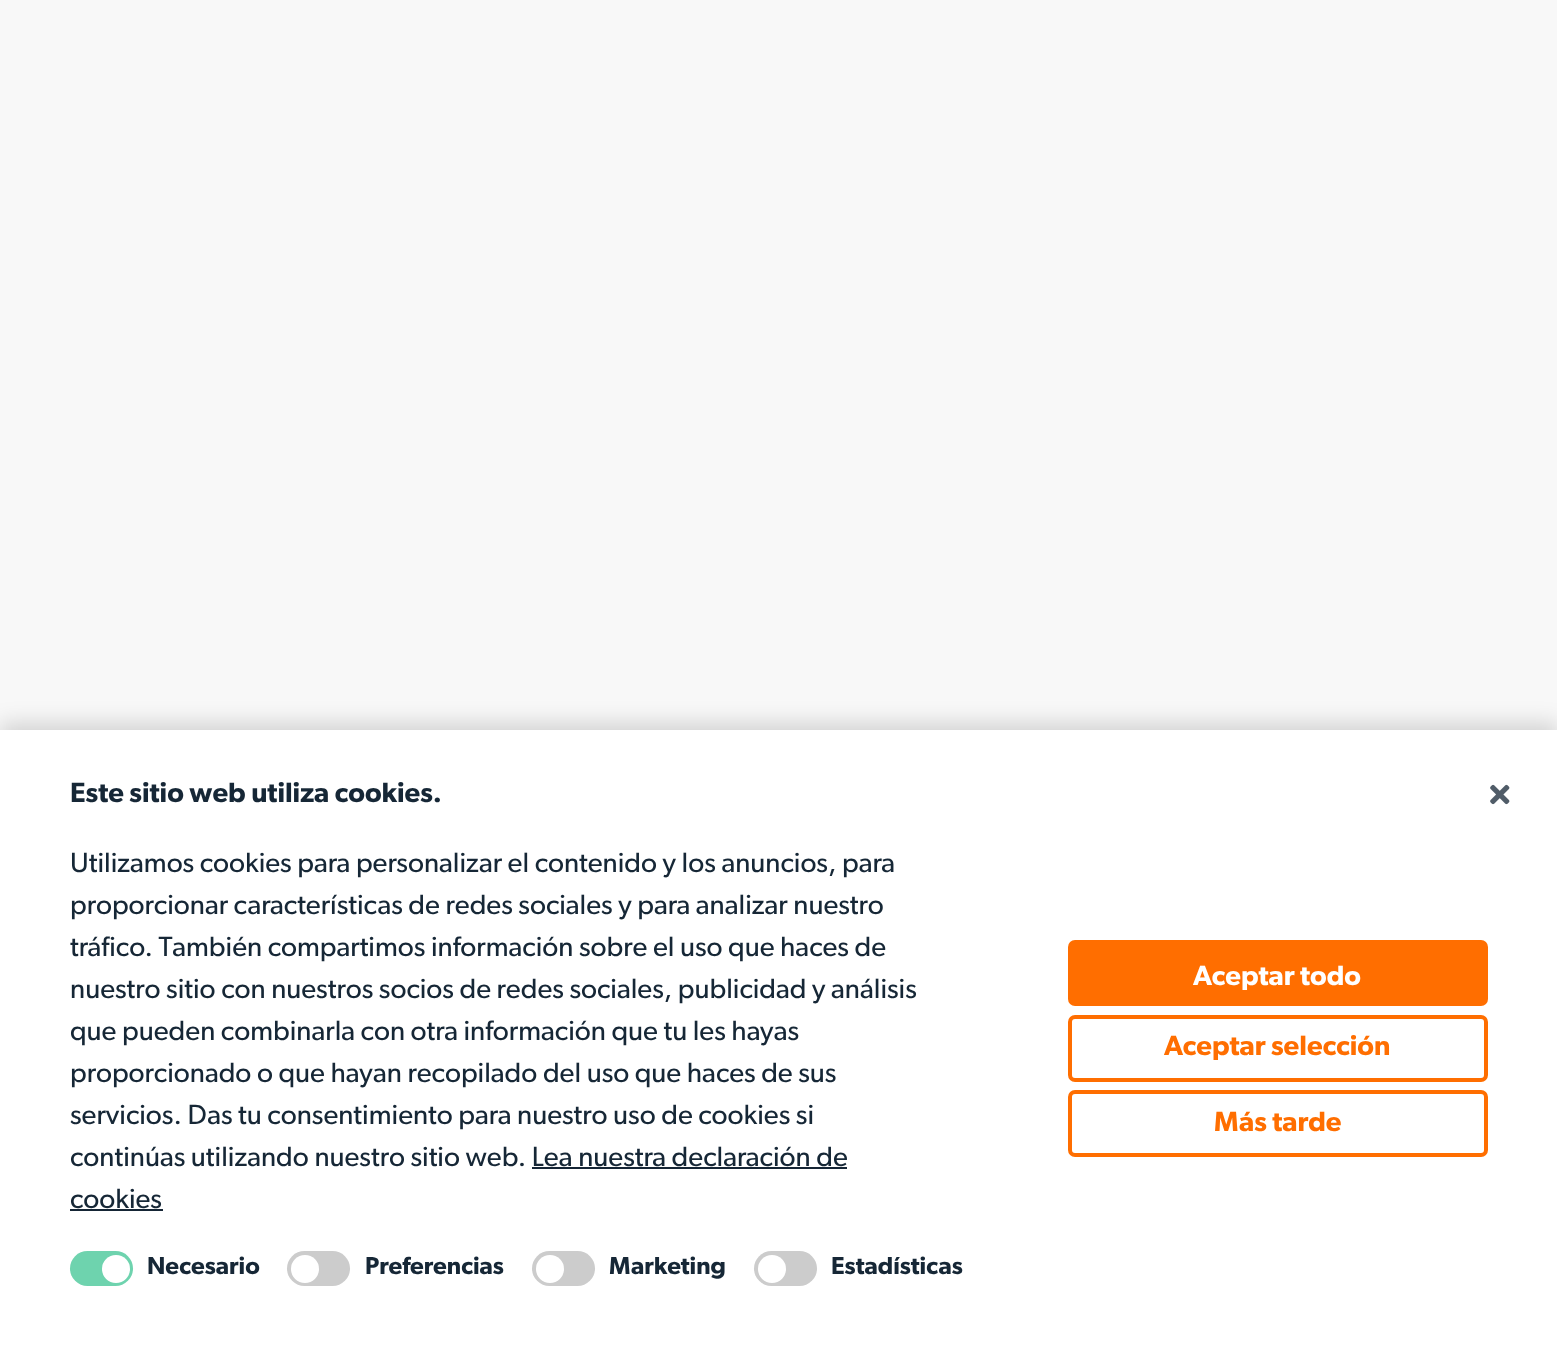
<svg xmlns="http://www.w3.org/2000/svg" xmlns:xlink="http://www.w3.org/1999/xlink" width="1557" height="1357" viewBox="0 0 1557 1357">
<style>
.cls-1{font:600 28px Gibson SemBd;fill:#162736}
.cls-2{font:28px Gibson;fill:#162736}
.cls-3{font:600 24.5px Gibson SemBd;fill:#162736}
.cls-4{font:600 28px Gibson SemBd;fill:#ffffff}
.cls-5{font:600 28px Gibson SemBd;fill:#ff6e00}
</style>
<rect width="100%" height="100%" fill="#f8f8f8"/>
<rect fill="#000000" fill-opacity="0.15" filter="blur(10.5px)" x="0" y="723" width="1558" height="628"/>
<rect fill="#ffffff" x="0" y="730" width="1557" height="627"/>
<rect fill="#152535" x="532" y="1167" width="315" height="2"/>
<rect fill="#152535" x="70" y="1209" width="93" height="2"/>
<rect fill="#6ed3ae" x="70" y="1251" width="63" height="35" rx="17.5"/>
<circle fill="#ffffff" cx="116" cy="1269" r="14"/>
<rect fill="#cccccc" x="287" y="1251" width="63" height="35" rx="17.5"/>
<circle fill="#ffffff" cx="305" cy="1269" r="14"/>
<rect fill="#cccccc" x="532" y="1251" width="63" height="35" rx="17.5"/>
<circle fill="#ffffff" cx="550" cy="1269" r="14"/>
<rect fill="#cccccc" x="754" y="1251" width="63" height="35" rx="17.5"/>
<circle fill="#ffffff" cx="772" cy="1269" r="14"/>
<rect fill="#ff6e00" x="1068" y="940" width="420" height="66" rx="7"/>
<rect fill="none" stroke="#ff6e00" stroke-width="4" x="1070" y="1017" width="416" height="63" rx="5"/>
<rect fill="none" stroke="#ff6e00" stroke-width="4" x="1070" y="1092" width="416" height="63" rx="5"/>
<image xlink:href="image0.png" x="1490" y="784" width="20" height="21"/>
<text class="cls-1" x="70" y="802">Este sitio web utiliza cookies.</text>
<text class="cls-2"><tspan x="70" y="872">Utilizamos cookies para personalizar el contenido y los anuncios, para</tspan><tspan x="70" y="914">proporcionar características de redes sociales y para analizar nuestro</tspan><tspan x="70" y="956">tráfico. También compartimos información sobre el uso que haces de</tspan><tspan x="70" y="998">nuestro sitio con nuestros socios de redes sociales, publicidad y análisis</tspan><tspan x="70" y="1040">que pueden combinarla con otra información que tu les hayas</tspan><tspan x="70" y="1082">proporcionado o que hayan recopilado del uso que haces de sus</tspan><tspan x="70" y="1124">servicios. Das tu consentimiento para nuestro uso de cookies si</tspan><tspan x="70" y="1166">continúas utilizando nuestro sitio web. Lea nuestra declaración de</tspan><tspan x="70" y="1208">cookies</tspan></text>
<text class="cls-3" x="147" y="1274">Necesario</text>
<text class="cls-3" x="365" y="1274">Preferencias</text>
<text class="cls-3" x="609" y="1274">Marketing</text>
<text class="cls-3" x="831" y="1274">Estadísticas</text>
<text class="cls-4" x="1193" y="985">Aceptar todo</text>
<text class="cls-5" x="1164" y="1055">Aceptar selección</text>
<text class="cls-5" x="1214" y="1131">Más tarde</text>
</svg>
